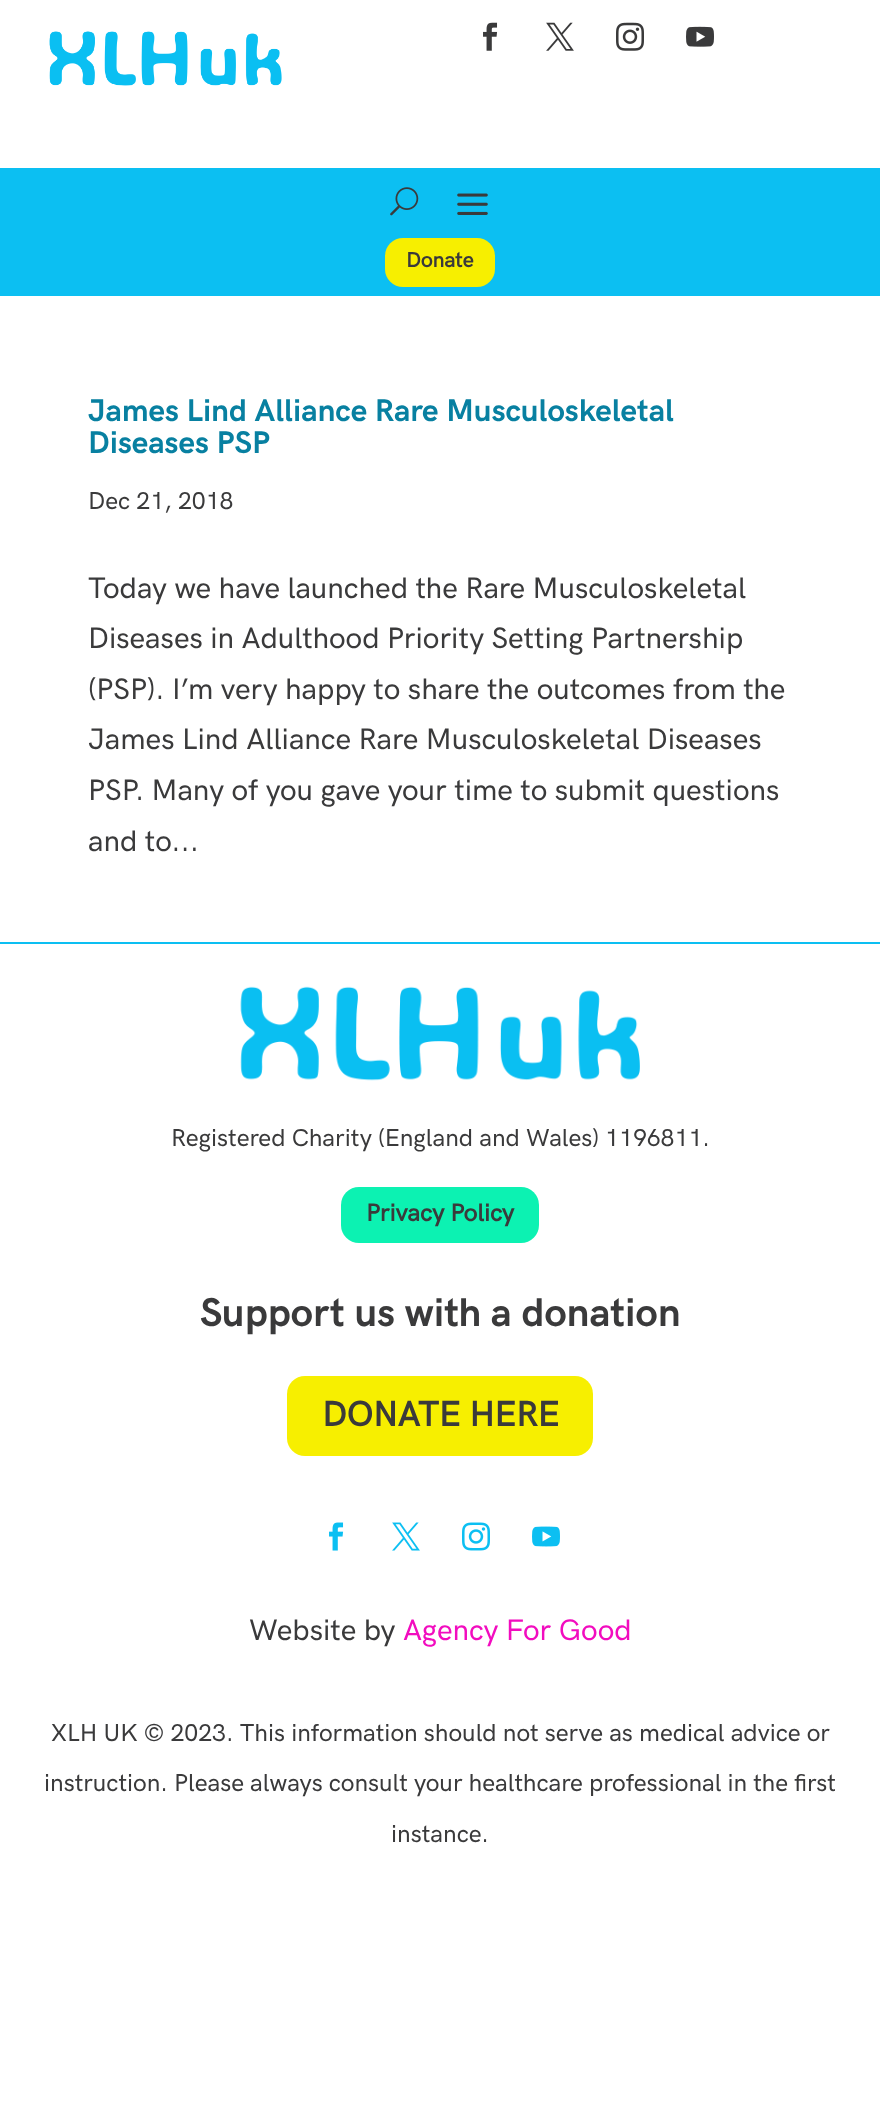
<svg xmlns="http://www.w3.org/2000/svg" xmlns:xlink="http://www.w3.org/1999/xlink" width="880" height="2112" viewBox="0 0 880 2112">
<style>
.cls-1{font:bold 21px 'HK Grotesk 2';fill:#3a3a3b}
.cls-2{font:bold 31.5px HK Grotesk;fill:#0880a1}
.cls-3{font:500 24.5px HK Grotesk;fill:#3a3a3b}
.cls-4{font:500 29.75px HK Grotesk;fill:#3a3a3b}
.cls-5{font:bold 24.5px 'HK Grotesk 2';fill:#3a3a3b}
.cls-6{font:bold 40.25px HK Grotesk;fill:#3a3a3b}
.cls-7{font:bold 35px 'HK Grotesk 2';fill:#3a3a3b}
.cls-8{font:500 29.75px HK Grotesk;fill:#f20cbf}
</style>
<rect width="100%" height="100%" fill="#ffffff"/>
<image xlink:href="image0.png" x="49" y="31" width="233" height="55"/>
<image xlink:href="image1.png" x="483" y="22" width="15" height="29"/>
<image xlink:href="image2.png" x="546" y="22" width="28" height="29"/>
<image xlink:href="image3.png" x="616" y="22" width="28" height="29"/>
<image xlink:href="image4.png" x="686" y="26" width="28" height="21"/>
<rect fill="#0cbff2" x="0" y="168" width="880" height="128"/>
<image xlink:href="image5.png" x="390" y="187" width="29" height="29"/>
<image xlink:href="image6.png" x="457" y="193" width="31" height="22"/>
<rect fill="#f7ef00" x="385" y="238" width="110" height="49" rx="18"/>
<rect fill="#0cbff2" x="0" y="942" width="880" height="2"/>
<image xlink:href="image7.png" x="240" y="986" width="400" height="95"/>
<rect fill="#0cf2b2" x="341" y="1187" width="198" height="56" rx="18"/>
<rect fill="#f7ef00" x="287" y="1376" width="306" height="80" rx="18"/>
<image xlink:href="image8.png" x="329" y="1522" width="15" height="29"/>
<image xlink:href="image9.png" x="392" y="1522" width="28" height="29"/>
<image xlink:href="image10.png" x="462" y="1522" width="28" height="29"/>
<image xlink:href="image11.png" x="532" y="1526" width="28" height="21"/>
<text class="cls-1" x="406" y="267">Donate</text>
<text class="cls-2"><tspan x="88" y="421">James Lind Alliance Rare Musculoskeletal</tspan><tspan x="88" y="453">Diseases PSP</tspan></text>
<text class="cls-3" x="88" y="509">Dec 21, 2018</text>
<text class="cls-4"><tspan x="88" y="598">Today we have launched the Rare Musculoskeletal</tspan><tspan x="88" y="648">Diseases in Adulthood Priority Setting Partnership</tspan><tspan x="88" y="699">(PSP). I’m very happy to share the outcomes from the</tspan><tspan x="88" y="749">James Lind Alliance Rare Musculoskeletal Diseases</tspan><tspan x="88" y="800">PSP. Many of you gave your time to submit questions</tspan><tspan x="88" y="851">and to...</tspan></text>
<text class="cls-3" x="171" y="1146">Registered Charity (England and Wales) 1196811.</text>
<text class="cls-5" x="366" y="1221">Privacy Policy</text>
<text class="cls-6" x="200" y="1326">Support us with a donation</text>
<text class="cls-7" x="322" y="1426">DONATE HERE</text>
<text class="cls-4" x="249" y="1640">Website by</text>
<text class="cls-8" x="403" y="1640">Agency For Good</text>
<text class="cls-3" x="51" y="1741">XLH UK © 2023. This information should not serve as medical advice or</text>
<text class="cls-3" x="44" y="1791">instruction. Please always consult your healthcare professional in the first</text>
<text class="cls-3" x="391" y="1842">instance.</text>
</svg>
